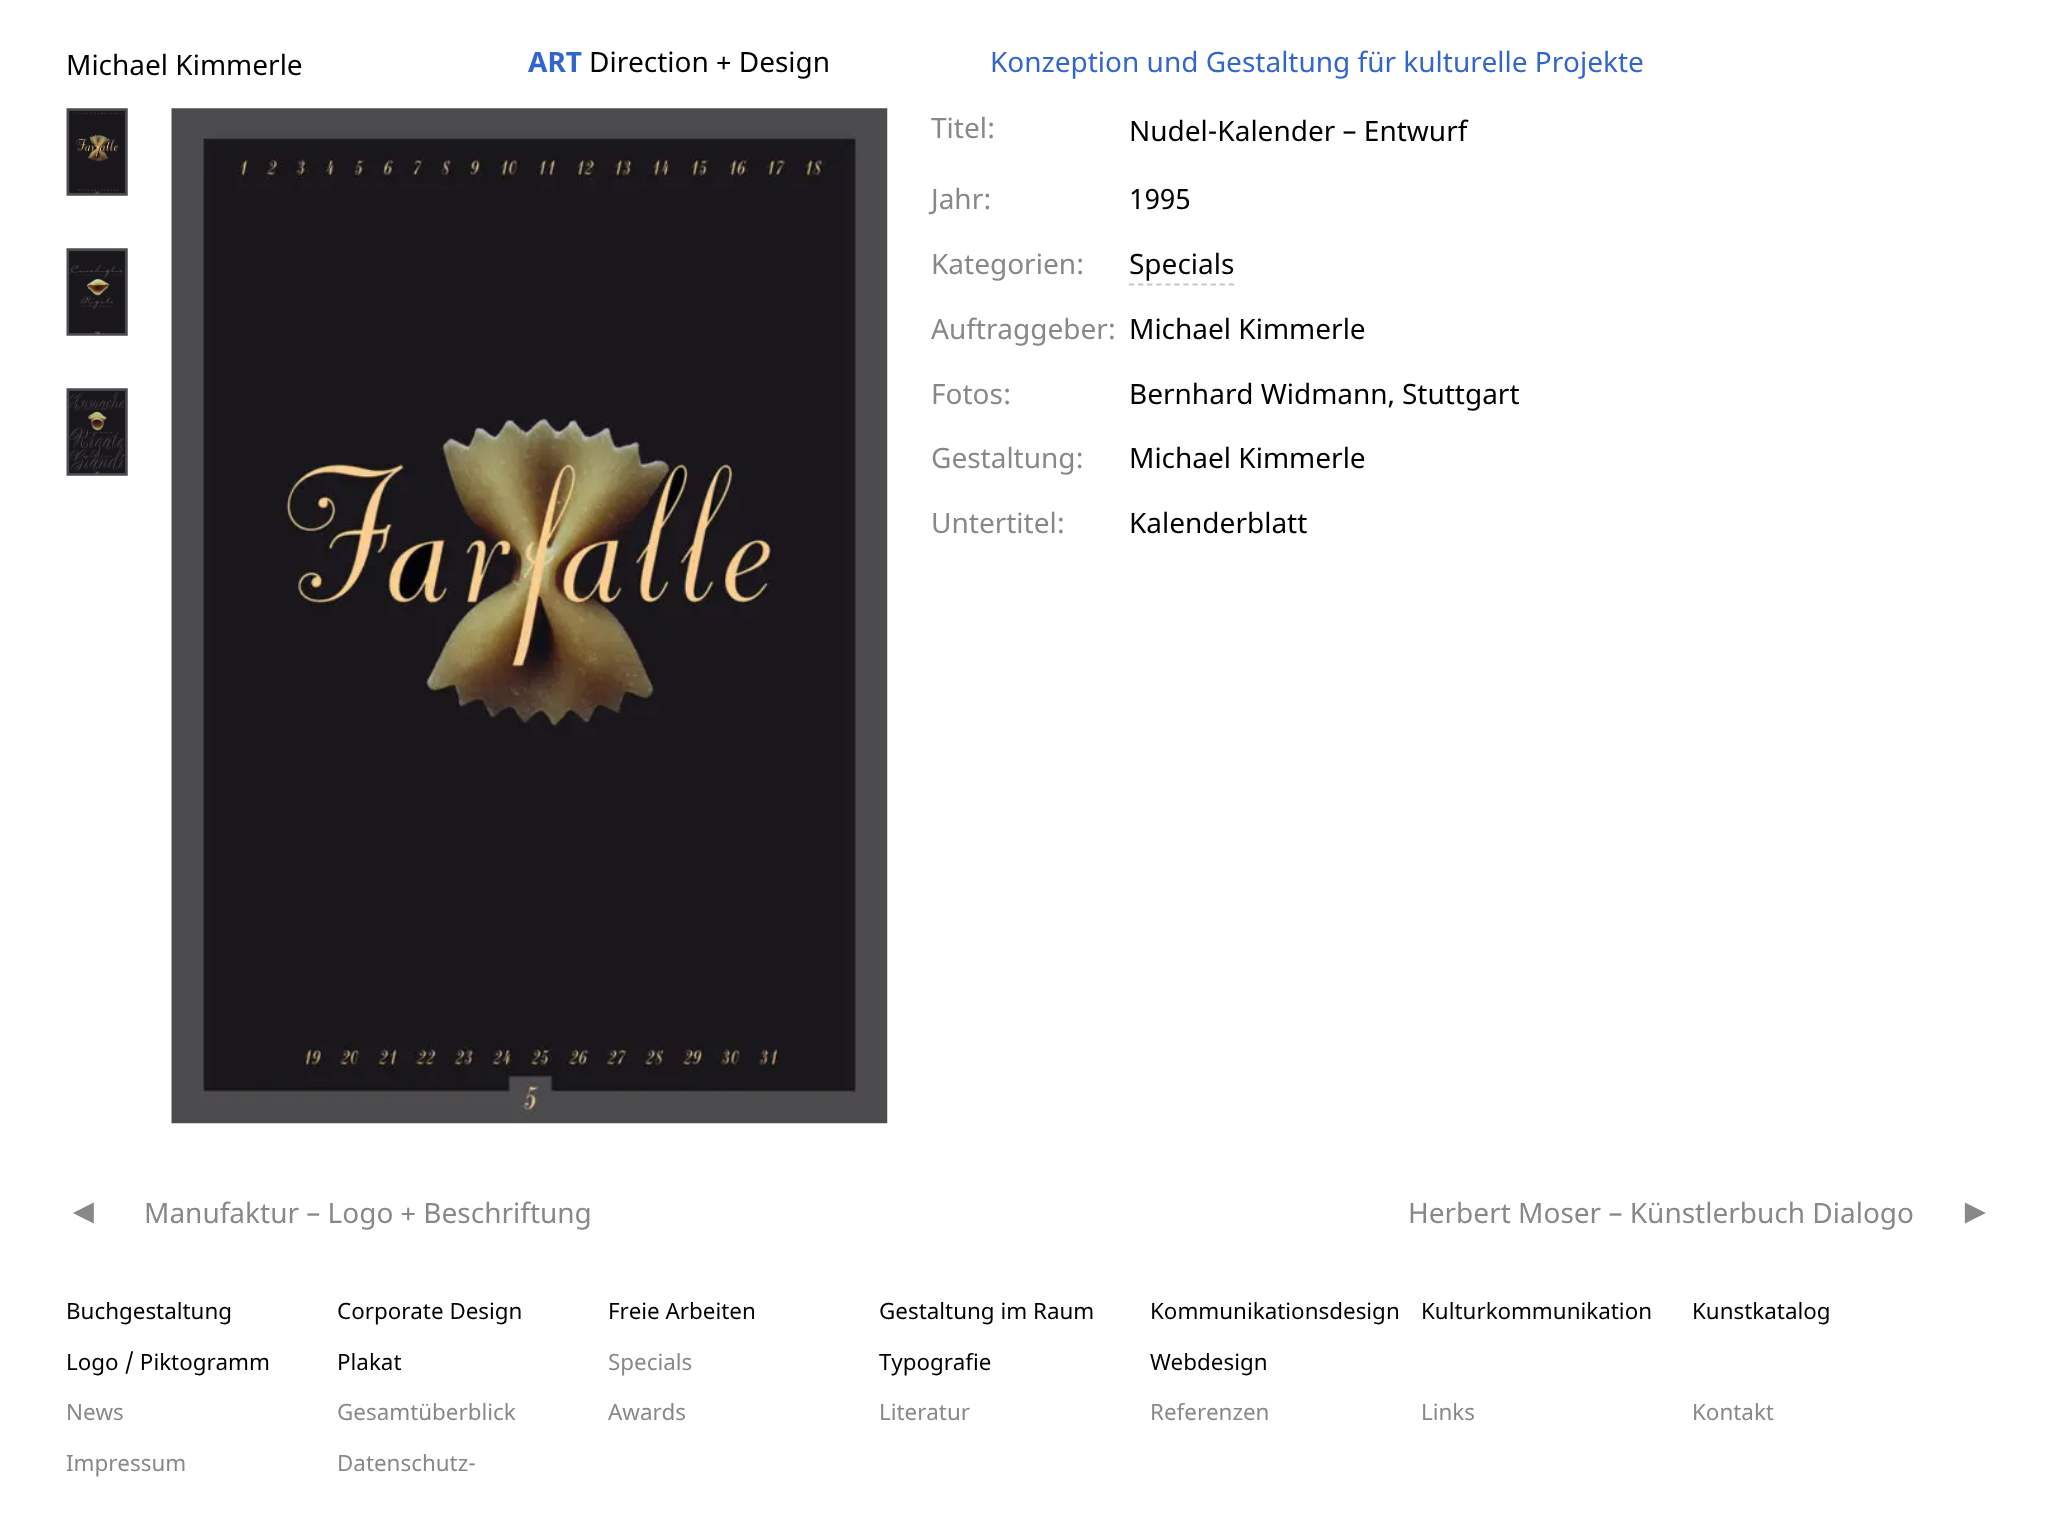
<svg xmlns="http://www.w3.org/2000/svg" xmlns:xlink="http://www.w3.org/1999/xlink" width="2057" height="1524" viewBox="0 0 2057 1524">
<style>
.cls-1{font:28px Noto Sans;fill:#000000}
.cls-2{font:bold 28px Noto Sans;fill:#3366cc}
.cls-3{font:28px Noto Sans;fill:#3366cc}
.cls-4{font:28px Noto Sans;fill:#888888}
.cls-5{font:35px Noto Sans;fill:#888888}
.cls-6{font:22.4px Noto Sans;fill:#000000}
.cls-7{font:22.4px Noto Sans;fill:#888888}
</style>
<rect width="100%" height="100%" fill="#ffffff"/>
<image xlink:href="image0.png" x="66" y="108" width="62" height="88"/>
<image xlink:href="image1.png" x="66" y="248" width="62" height="88"/>
<image xlink:href="image2.png" x="66" y="388" width="62" height="88"/>
<image xlink:href="image3.png" x="171" y="108" width="717" height="1016"/>
<path fill="none" stroke="#c6c6c6" stroke-width="1.8" stroke-dasharray="5.25 3.82" d="M1129 284.5H1234"/>
<text class="cls-1" x="66" y="75">Michael Kimmerle</text>
<text class="cls-2" x="528" y="72">ART</text>
<text class="cls-1" x="589" y="72">Direction + Design</text>
<text class="cls-3" x="990" y="72">Konzeption und Gestaltung für kulturelle Projekte</text>
<text class="cls-4" x="931" y="138">Titel:</text>
<text class="cls-1" x="1129" y="141">Nudel-Kalender – Entwurf</text>
<text class="cls-4" x="931" y="209">Jahr:</text>
<text class="cls-1" x="1129" y="209">1995</text>
<text class="cls-4" x="931" y="274">Kategorien:</text>
<text class="cls-1" x="1129" y="274">Specials</text>
<text class="cls-4" x="931" y="339">Auftraggeber:</text>
<text class="cls-1" x="1129" y="339">Michael Kimmerle</text>
<text class="cls-4" x="931" y="404">Fotos:</text>
<text class="cls-1" x="1129" y="404">Bernhard Widmann, Stuttgart</text>
<text class="cls-4" x="931" y="468">Gestaltung:</text>
<text class="cls-1" x="1129" y="468">Michael Kimmerle</text>
<text class="cls-4" x="931" y="533">Untertitel:</text>
<text class="cls-1" x="1129" y="533">Kalenderblatt</text>
<text class="cls-5" x="66" y="1223">◄</text>
<text class="cls-4" x="144" y="1223">Manufaktur – Logo + Beschriftung</text>
<text class="cls-4" x="1408" y="1223">Herbert Moser – Künstlerbuch Dialogo</text>
<text class="cls-5" x="1958" y="1223">►</text>
<text class="cls-6" x="66" y="1319">Buchgestaltung</text>
<text class="cls-6" x="337" y="1319">Corporate Design</text>
<text class="cls-6" x="608" y="1319">Freie Arbeiten</text>
<text class="cls-6" x="879" y="1319">Gestaltung im Raum</text>
<text class="cls-6" x="1150" y="1319">Kommunikationsdesign</text>
<text class="cls-6" x="1421" y="1319">Kulturkommunikation</text>
<text class="cls-6" x="1692" y="1319">Kunstkatalog</text>
<text class="cls-6" x="66" y="1370">Logo / Piktogramm</text>
<text class="cls-6" x="337" y="1370">Plakat</text>
<text class="cls-7" x="608" y="1370">Specials</text>
<text class="cls-6" x="879" y="1370">Typografie</text>
<text class="cls-6" x="1150" y="1370">Webdesign</text>
<text class="cls-7" x="66" y="1420">News</text>
<text class="cls-7" x="337" y="1420">Gesamtüberblick</text>
<text class="cls-7" x="608" y="1420">Awards</text>
<text class="cls-7" x="879" y="1420">Literatur</text>
<text class="cls-7" x="1150" y="1420">Referenzen</text>
<text class="cls-7" x="1421" y="1420">Links</text>
<text class="cls-7" x="1692" y="1420">Kontakt</text>
<text class="cls-7" x="66" y="1471">Impressum</text>
<text class="cls-7" x="337" y="1471">Datenschutz-</text>
</svg>
